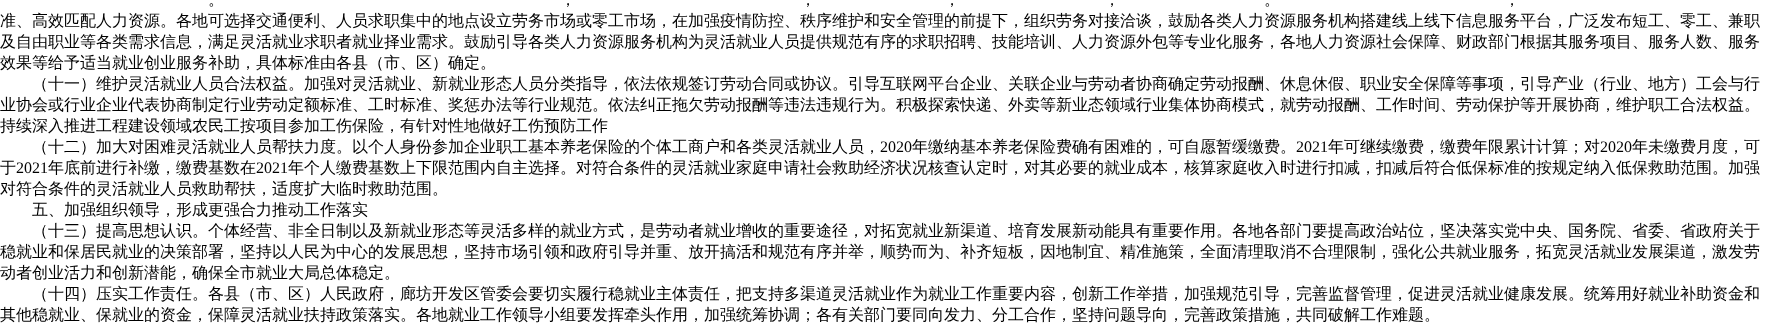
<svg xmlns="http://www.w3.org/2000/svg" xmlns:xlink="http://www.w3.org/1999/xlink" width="1765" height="333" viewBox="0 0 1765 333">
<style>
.cls-1{font:500 16px WenQuanYi Zen Hei;fill:#000000}
.cls-2{font:16px Liberation Serif;fill:#000000}
</style>
<rect width="100%" height="100%" fill="#ffffff"/>
<text class="cls-1" x="208" y="5">。</text>
<text class="cls-1" x="560" y="5">，</text>
<text class="cls-1" x="800" y="5">，</text>
<text class="cls-1" x="944" y="5">，</text>
<text class="cls-1" x="1104" y="5">，</text>
<text class="cls-1" x="1264" y="5">。</text>
<text class="cls-1" x="1504" y="5">，</text>
<text class="cls-1"><tspan x="0" y="26">准、高效匹配人力资源。各地可选择交通便利、人员求职集中的地点设立劳务市场或零工市场，在加强疫情防控、秩序维护和安全管理的前提下，组织劳务对接洽谈，鼓励各类人力资源服务机构搭建线上线下信息服务平台，广泛发布短工、零工、兼职</tspan><tspan x="0" y="47">及自由职业等各类需求信息，满足灵活就业求职者就业择业需求。鼓励引导各类人力资源服务机构为灵活就业人员提供规范有序的求职招聘、技能培训、人力资源外包等专业化服务，各地人力资源社会保障、财政部门根据其服务项目、服务人数、服务</tspan><tspan x="0" y="68">效果等给予适当就业创业服务补助，具体标准由各县（市、区）确定。</tspan></text>
<text class="cls-1" x="32" y="89">（十一）维护灵活就业人员合法权益。加强对灵活就业、新就业形态人员分类指导，依法依规签订劳动合同或协议。引导互联网平台企业、关联企业与劳动者协商确定劳动报酬、休息休假、职业安全保障等事项，引导产业（行业、地方）工会与行</text>
<text class="cls-1"><tspan x="0" y="110">业协会或行业企业代表协商制定行业劳动定额标准、工时标准、奖惩办法等行业规范。依法纠正拖欠劳动报酬等违法违规行为。积极探索快递、外卖等新业态领域行业集体协商模式，就劳动报酬、工作时间、劳动保护等开展协商，维护职工合法权益。</tspan><tspan x="0" y="131">持续深入推进工程建设领域农民工按项目参加工伤保险，有针对性地做好工伤预防工作</tspan></text>
<text class="cls-1" x="32" y="152">（十二）加大对困难灵活就业人员帮扶力度。以个人身份参加企业职工基本养老保险的个体工商户和各类灵活就业人员，</text>
<text class="cls-2" x="880" y="152">2020</text>
<text class="cls-1" x="912" y="152">年缴纳基本养老保险费确有困难的，可自愿暂缓缴费。</text>
<text class="cls-2" x="1296" y="152">2021</text>
<text class="cls-1" x="1328" y="152">年可继续缴费，缴费年限累计计算；对</text>
<text class="cls-2" x="1600" y="152">2020</text>
<text class="cls-1" x="1632" y="152">年未缴费月度，可</text>
<text class="cls-1" x="0" y="173">于</text>
<text class="cls-2" x="16" y="173">2021</text>
<text class="cls-1" x="48" y="173">年底前进行补缴，缴费基数在</text>
<text class="cls-2" x="256" y="173">2021</text>
<text class="cls-1" x="288" y="173">年个人缴费基数上下限范围内自主选择。对符合条件的灵活就业家庭申请社会救助经济状况核查认定时，对其必要的就业成本，核算家庭收入时进行扣减，扣减后符合低保标准的按规定纳入低保救助范围。加强</text>
<text class="cls-1" x="0" y="194">对符合条件的灵活就业人员救助帮扶，适度扩大临时救助范围。</text>
<text class="cls-1"><tspan x="32" y="215">五、加强组织领导，形成更强合力推动工作落实</tspan><tspan x="32" y="236">（十三）提高思想认识。个体经营、非全日制以及新就业形态等灵活多样的就业方式，是劳动者就业增收的重要途径，对拓宽就业新渠道、培育发展新动能具有重要作用。各地各部门要提高政治站位，坚决落实党中央、国务院、省委、省政府关于</tspan></text>
<text class="cls-1"><tspan x="0" y="257">稳就业和保居民就业的决策部署，坚持以人民为中心的发展思想，坚持市场引领和政府引导并重、放开搞活和规范有序并举，顺势而为、补齐短板，因地制宜、精准施策，全面清理取消不合理限制，强化公共就业服务，拓宽灵活就业发展渠道，激发劳</tspan><tspan x="0" y="278">动者创业活力和创新潜能，确保全市就业大局总体稳定。</tspan></text>
<text class="cls-1" x="32" y="299">（十四）压实工作责任。各县（市、区）人民政府，廊坊开发区管委会要切实履行稳就业主体责任，把支持多渠道灵活就业作为就业工作重要内容，创新工作举措，加强规范引导，完善监督管理，促进灵活就业健康发展。统筹用好就业补助资金和</text>
<text class="cls-1" x="0" y="320">其他稳就业、保就业的资金，保障灵活就业扶持政策落实。各地就业工作领导小组要发挥牵头作用，加强统筹协调；各有关部门要同向发力、分工合作，坚持问题导向，完善政策措施，共同破解工作难题。</text>
</svg>
